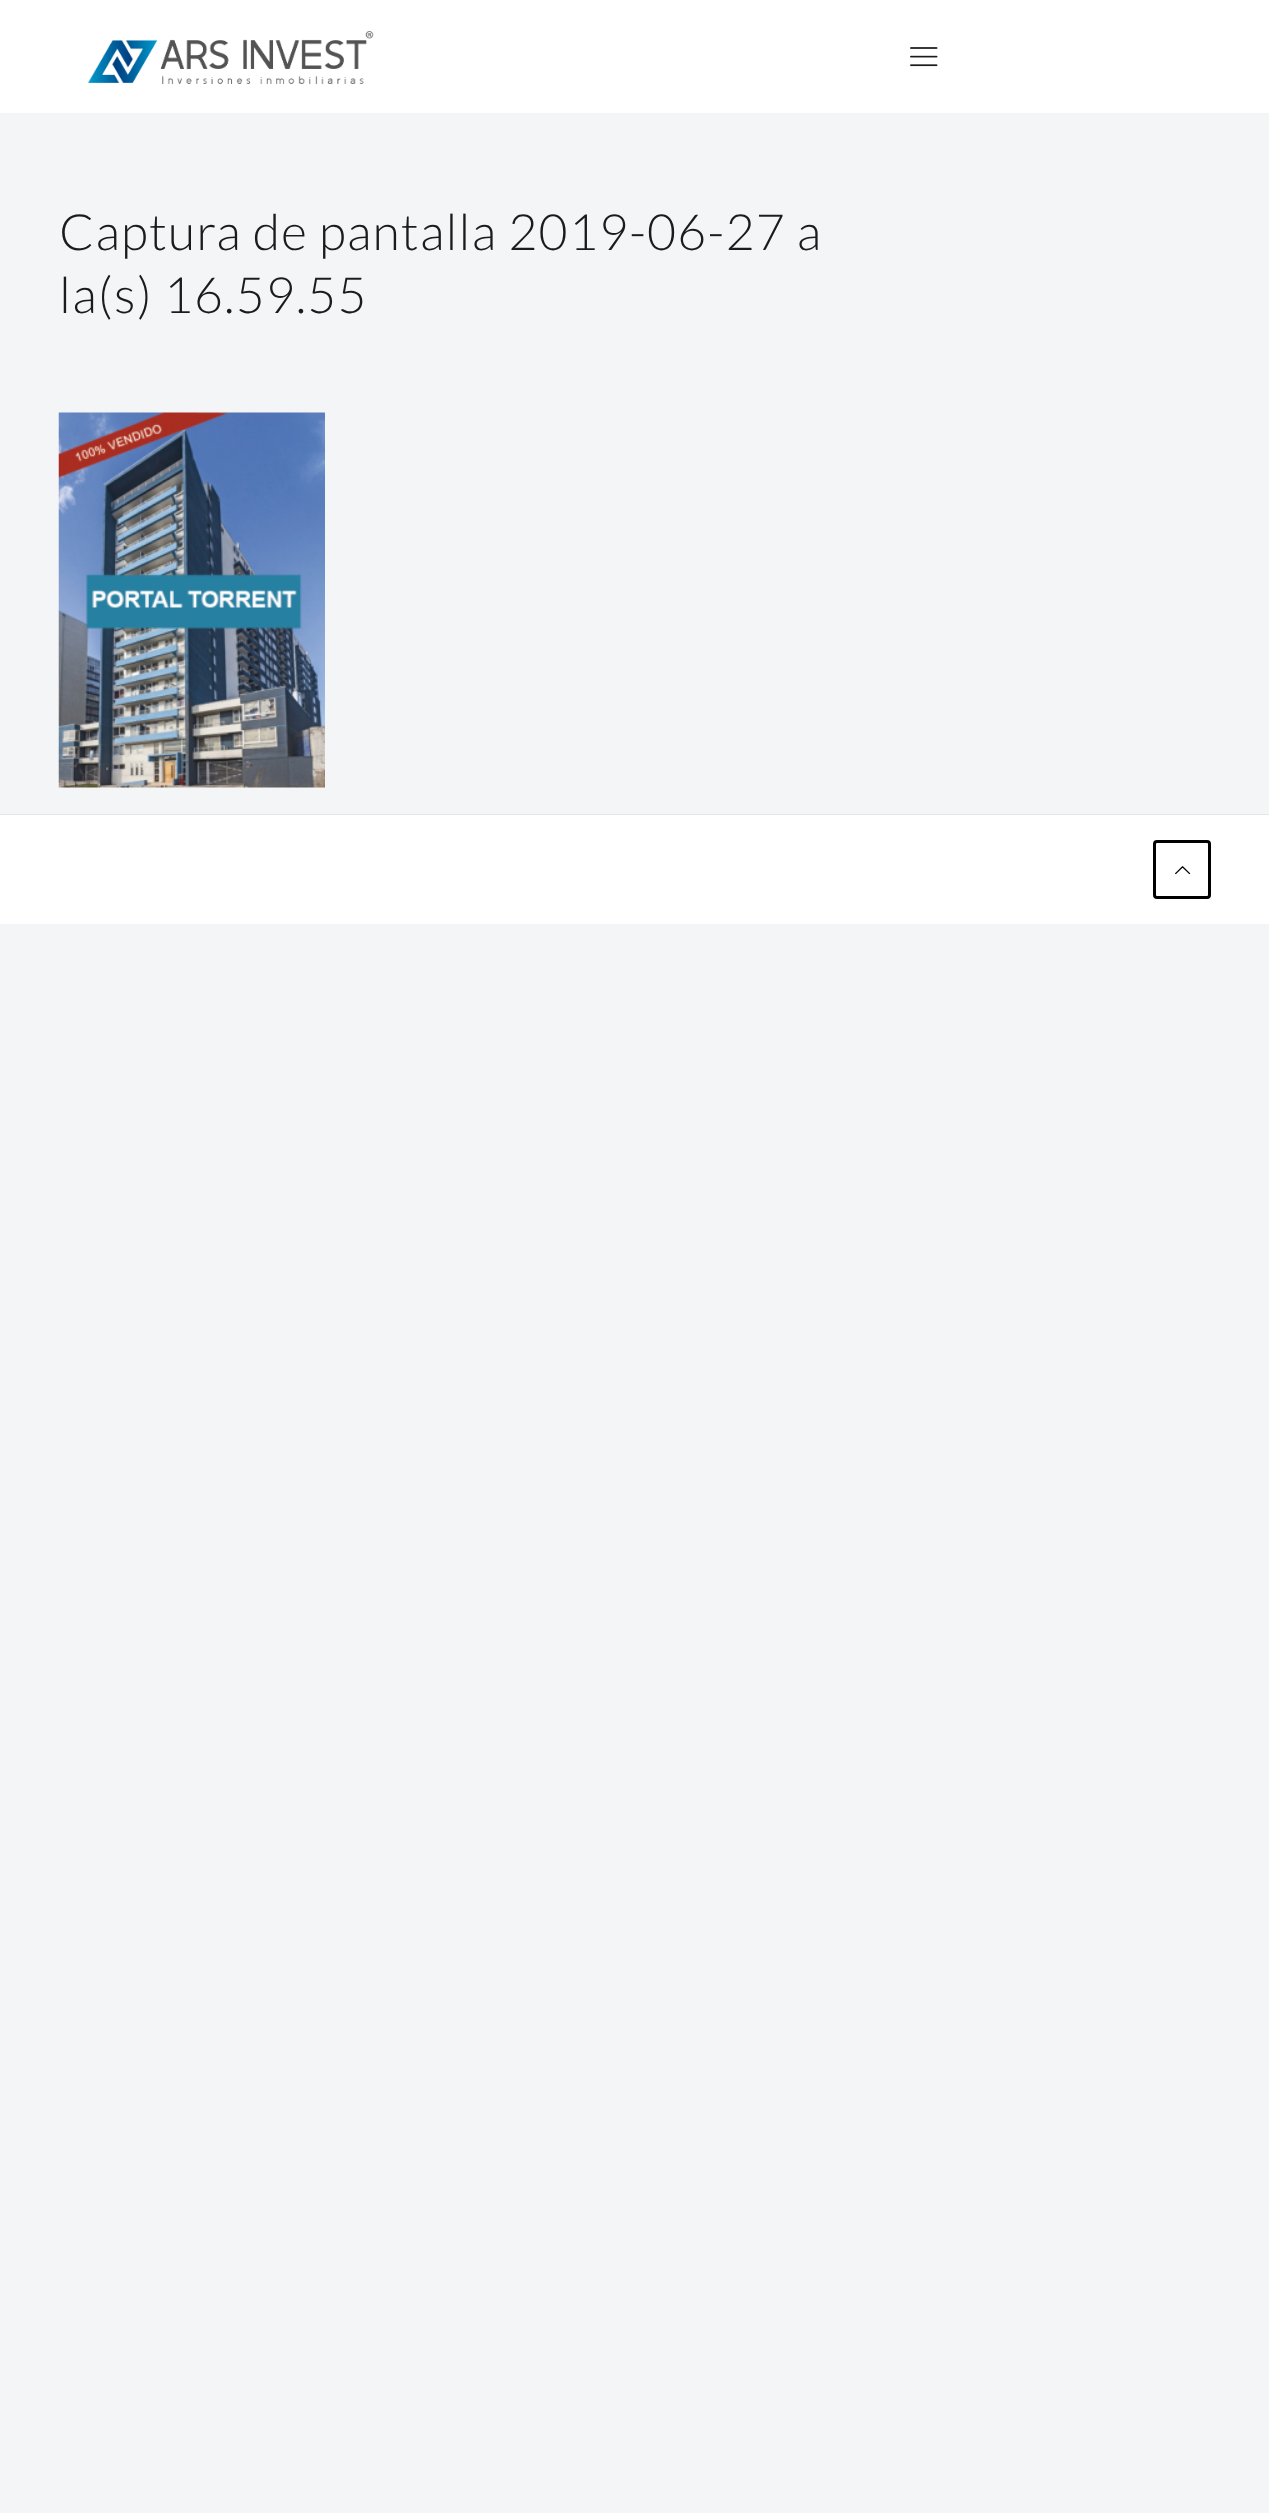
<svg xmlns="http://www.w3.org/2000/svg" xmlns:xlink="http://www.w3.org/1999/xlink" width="1269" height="2513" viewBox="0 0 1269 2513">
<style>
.cls-1{font:300 50px Lato;letter-spacing:1.25px;fill:#1b1b1c}
</style>
<rect width="100%" height="100%" fill="#f4f5f6"/>
<rect fill="#ffffff" x="0" y="0" width="1269" height="113"/>
<image xlink:href="image0.png" x="88" y="31" width="286" height="53"/>
<image xlink:href="image1.png" x="910" y="47" width="28" height="20"/>
<image xlink:href="image2.png" x="58" y="412" width="267" height="376"/>
<rect fill="#ffffff" x="0" y="815" width="1269" height="109"/>
<rect fill="#e6e6e6" x="0" y="814" width="1269" height="1"/>
<rect fill="none" stroke="#000000" stroke-width="3" x="1154.5" y="841.5" width="55" height="56" rx="2.5"/>
<image xlink:href="image3.png" x="1175" y="866" width="16" height="9"/>
<text class="cls-1"><tspan x="59" y="250">Captura de pantalla 2019-06-27 a</tspan><tspan x="59" y="313">la(s) 16.59.55</tspan></text>
</svg>
